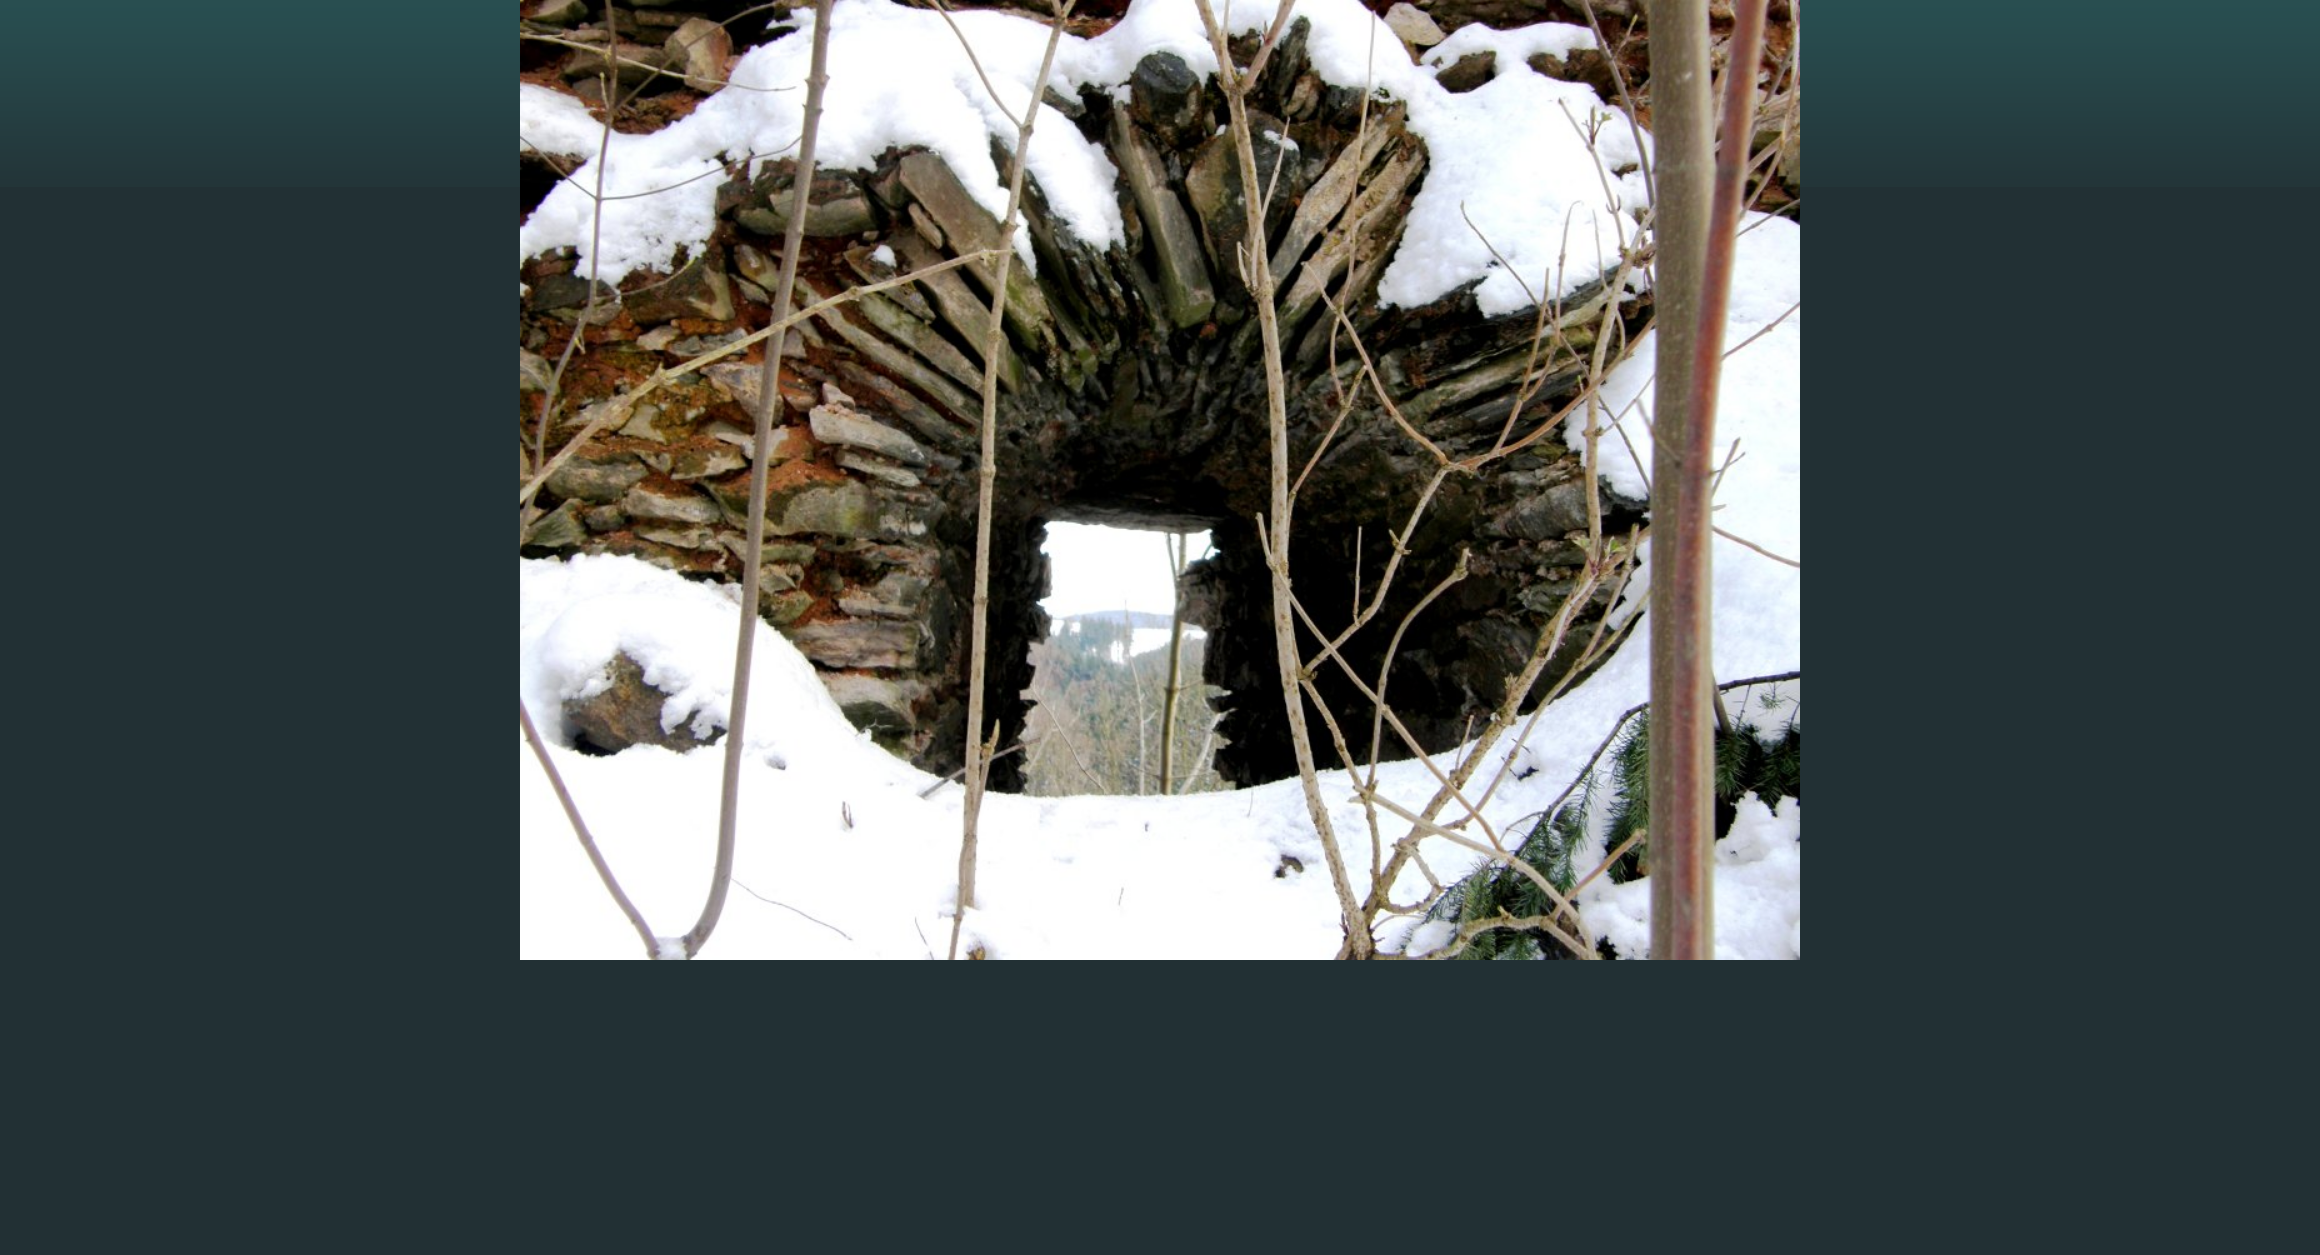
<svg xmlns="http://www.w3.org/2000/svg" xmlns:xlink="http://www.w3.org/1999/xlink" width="2320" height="1255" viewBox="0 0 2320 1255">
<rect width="100%" height="100%" fill="#223034"/>
<image xlink:href="image0.png" x="0" y="0" width="2320" height="187"/>
<image xlink:href="image1.png" x="520" y="0" width="1280" height="960"/>
</svg>
